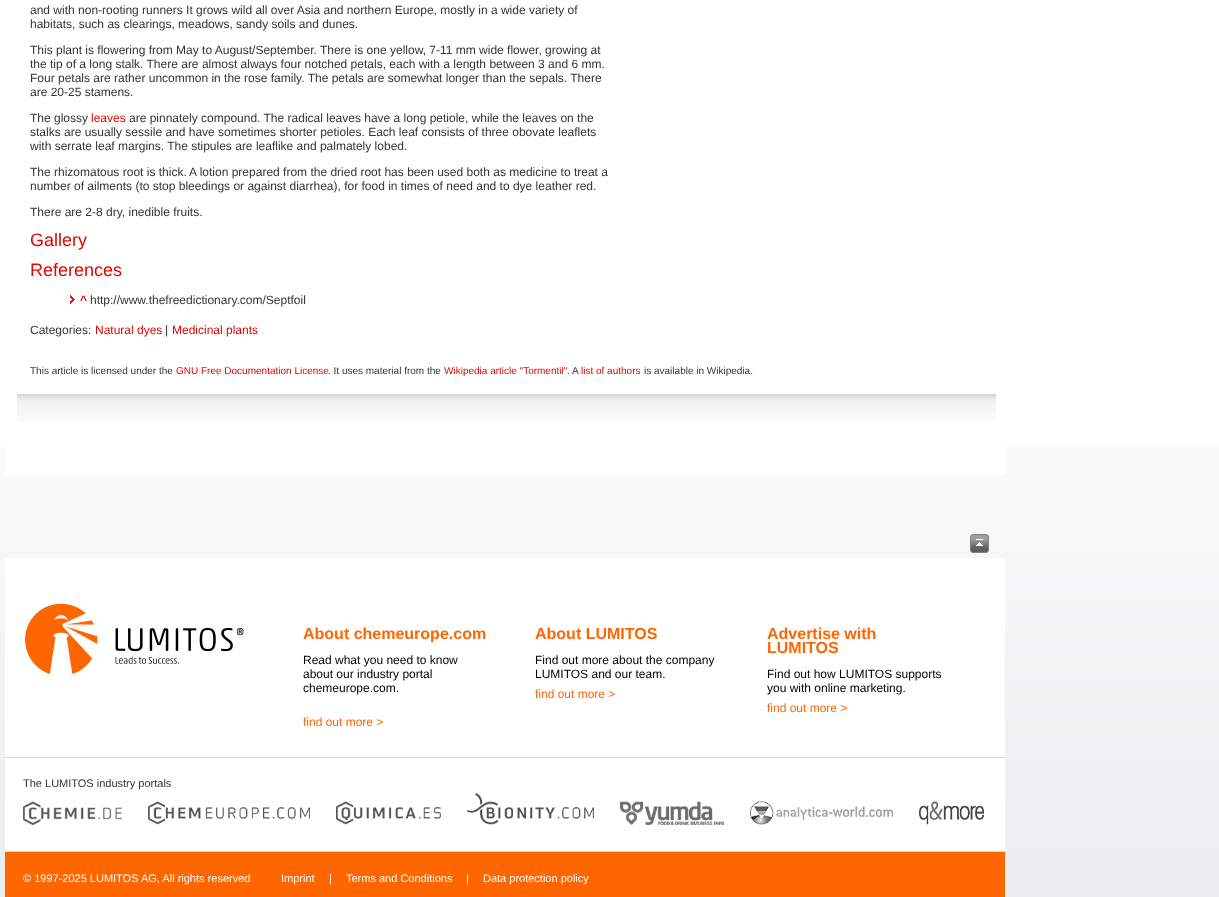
<svg xmlns="http://www.w3.org/2000/svg" xmlns:xlink="http://www.w3.org/1999/xlink" width="1219" height="897" viewBox="0 0 1219 897">
<style>
.cls-1{font:12px Liberation Sans;fill:#333333}
.cls-2{font:12px Liberation Sans;fill:#dd0700}
.cls-3{font:18px Liberation Sans;fill:#dd0700}
.cls-4{font:bold 12px Liberation Sans;fill:#dd0700}
.cls-5{font:10px Liberation Sans;fill:#333333}
.cls-6{font:10px Liberation Sans;fill:#dd0700}
.cls-7{font:bold 16px Liberation Sans;fill:#ff6600}
.cls-8{font:12px Liberation Sans;fill:#000000}
.cls-9{font:12px Liberation Sans;fill:#ff6600}
.cls-10{font:11px Liberation Sans;fill:#333333}
.cls-11{font:11px Liberation Sans;fill:#ffffff}
</style>
<rect width="100%" height="100%" fill="#ffffff"/>
<image xlink:href="image0.png" x="0" y="446" width="1219" height="451"/>
<rect fill="#ffffff" x="5" y="446" width="1000" height="28"/>
<image xlink:href="image1.png" x="70" y="295" width="5" height="9"/>
<image xlink:href="image2.png" x="17" y="394" width="979" height="27"/>
<image xlink:href="image3.png" x="970" y="534" width="19" height="19"/>
<rect fill="#ffffff" x="5" y="558" width="1000" height="293"/>
<image xlink:href="image4.png" x="25" y="603" width="219" height="71"/>
<rect fill="#d9d9d9" x="5" y="757" width="1000" height="1"/>
<image xlink:href="image5.png" x="23" y="801" width="99" height="24"/>
<image xlink:href="image6.png" x="148" y="801" width="162" height="24"/>
<image xlink:href="image7.png" x="336" y="801" width="105" height="24"/>
<image xlink:href="image8.png" x="467" y="793" width="127" height="32"/>
<image xlink:href="image9.png" x="620" y="801" width="104" height="24"/>
<image xlink:href="image10.png" x="750" y="801" width="143" height="24"/>
<image xlink:href="image11.png" x="919" y="801" width="65" height="24"/>
<rect fill="#ff6600" x="5" y="852" width="1000" height="45"/>
<rect fill="#d9d9d9" x="5" y="851" width="1000" height="1"/>
<text class="cls-1"><tspan x="30" y="14">and with non-rooting runners It grows wild all over Asia and northern Europe, mostly in a wide variety of</tspan><tspan x="30" y="28">habitats, such as clearings, meadows, sandy soils and dunes.</tspan></text>
<text class="cls-1"><tspan x="30" y="54">This plant is flowering from May to August/September. There is one yellow, 7-11 mm wide flower, growing at</tspan><tspan x="30" y="68">the tip of a long stalk. There are almost always four notched petals, each with a length between 3 and 6 mm.</tspan><tspan x="30" y="82">Four petals are rather uncommon in the rose family. The petals are somewhat longer than the sepals. There</tspan><tspan x="30" y="96">are 20-25 stamens.</tspan></text>
<text class="cls-1" x="30" y="122">The glossy</text>
<text class="cls-2" x="91" y="122">leaves</text>
<text class="cls-1" x="129" y="122">are pinnately compound. The radical leaves have a long petiole, while the leaves on the</text>
<text class="cls-1"><tspan x="30" y="136">stalks are usually sessile and have sometimes shorter petioles. Each leaf consists of three obovate leaflets</tspan><tspan x="30" y="150">with serrate leaf margins. The stipules are leaflike and palmately lobed.</tspan></text>
<text class="cls-1" x="30" y="176">The rhizomatous root is thick.</text>
<text class="cls-1" x="189" y="176">A lotion prepared from the dried root has been used both as medicine to treat a</text>
<text class="cls-1" x="30" y="190">number of ailments (to stop bleedings or against diarrhea), for food in times of need and to dye leather red.</text>
<text class="cls-1" x="30" y="216">There are 2-8 dry, inedible fruits.</text>
<text class="cls-3"><tspan x="30" y="246">Gallery</tspan><tspan x="30" y="276">References</tspan></text>
<text class="cls-4" x="80" y="304">^</text>
<text class="cls-1" x="90" y="304">http://www.thefreedictionary.com/Septfoil</text>
<text class="cls-1" x="30" y="334">Categories:</text>
<text class="cls-2" x="95" y="334">Natural dyes</text>
<text class="cls-1" x="165" y="334">|</text>
<text class="cls-2" x="172" y="334">Medicinal plants</text>
<text class="cls-5" x="30" y="374">This article is licensed under the</text>
<text class="cls-6" x="176" y="374">GNU Free Documentation License</text>
<text class="cls-5" x="328" y="374">. It uses material from the</text>
<text class="cls-6" x="444" y="374">Wikipedia article "Tormentil"</text>
<text class="cls-5" x="567" y="374">.</text>
<text class="cls-5" x="572" y="374">A</text>
<text class="cls-6" x="581" y="374">list of authors</text>
<text class="cls-5" x="644" y="374">is available in Wikipedia.</text>
<text class="cls-7" x="303" y="639">About chemeurope.com</text>
<text class="cls-8"><tspan x="303" y="664">Read what you need to know</tspan><tspan x="303" y="678">about our industry portal</tspan><tspan x="303" y="692">chemeurope.com.</tspan></text>
<text class="cls-9" x="303" y="726">find out more &gt;</text>
<text class="cls-7" x="535" y="639">About LUMITOS</text>
<text class="cls-8"><tspan x="535" y="664">Find out more about the company</tspan><tspan x="535" y="678">LUMITOS and our team.</tspan></text>
<text class="cls-9" x="535" y="698">find out more &gt;</text>
<text class="cls-7"><tspan x="767" y="639">Advertise with</tspan><tspan x="767" y="653">LUMITOS</tspan></text>
<text class="cls-8"><tspan x="767" y="678">Find out how LUMITOS supports</tspan><tspan x="767" y="692">you with online marketing.</tspan></text>
<text class="cls-9" x="767" y="712">find out more &gt;</text>
<text class="cls-10" x="23" y="787">The LUMITOS industry portals</text>
<text class="cls-11" x="23" y="882">© 1997-2025 LUMITOS AG, All rights reserved</text>
<text class="cls-11" x="281" y="882">Imprint</text>
<text class="cls-11" x="329" y="882">|</text>
<text class="cls-11" x="346" y="882">Terms and Conditions</text>
<text class="cls-11" x="466" y="882">|</text>
<text class="cls-11" x="483" y="882">Data protection policy</text>
</svg>
